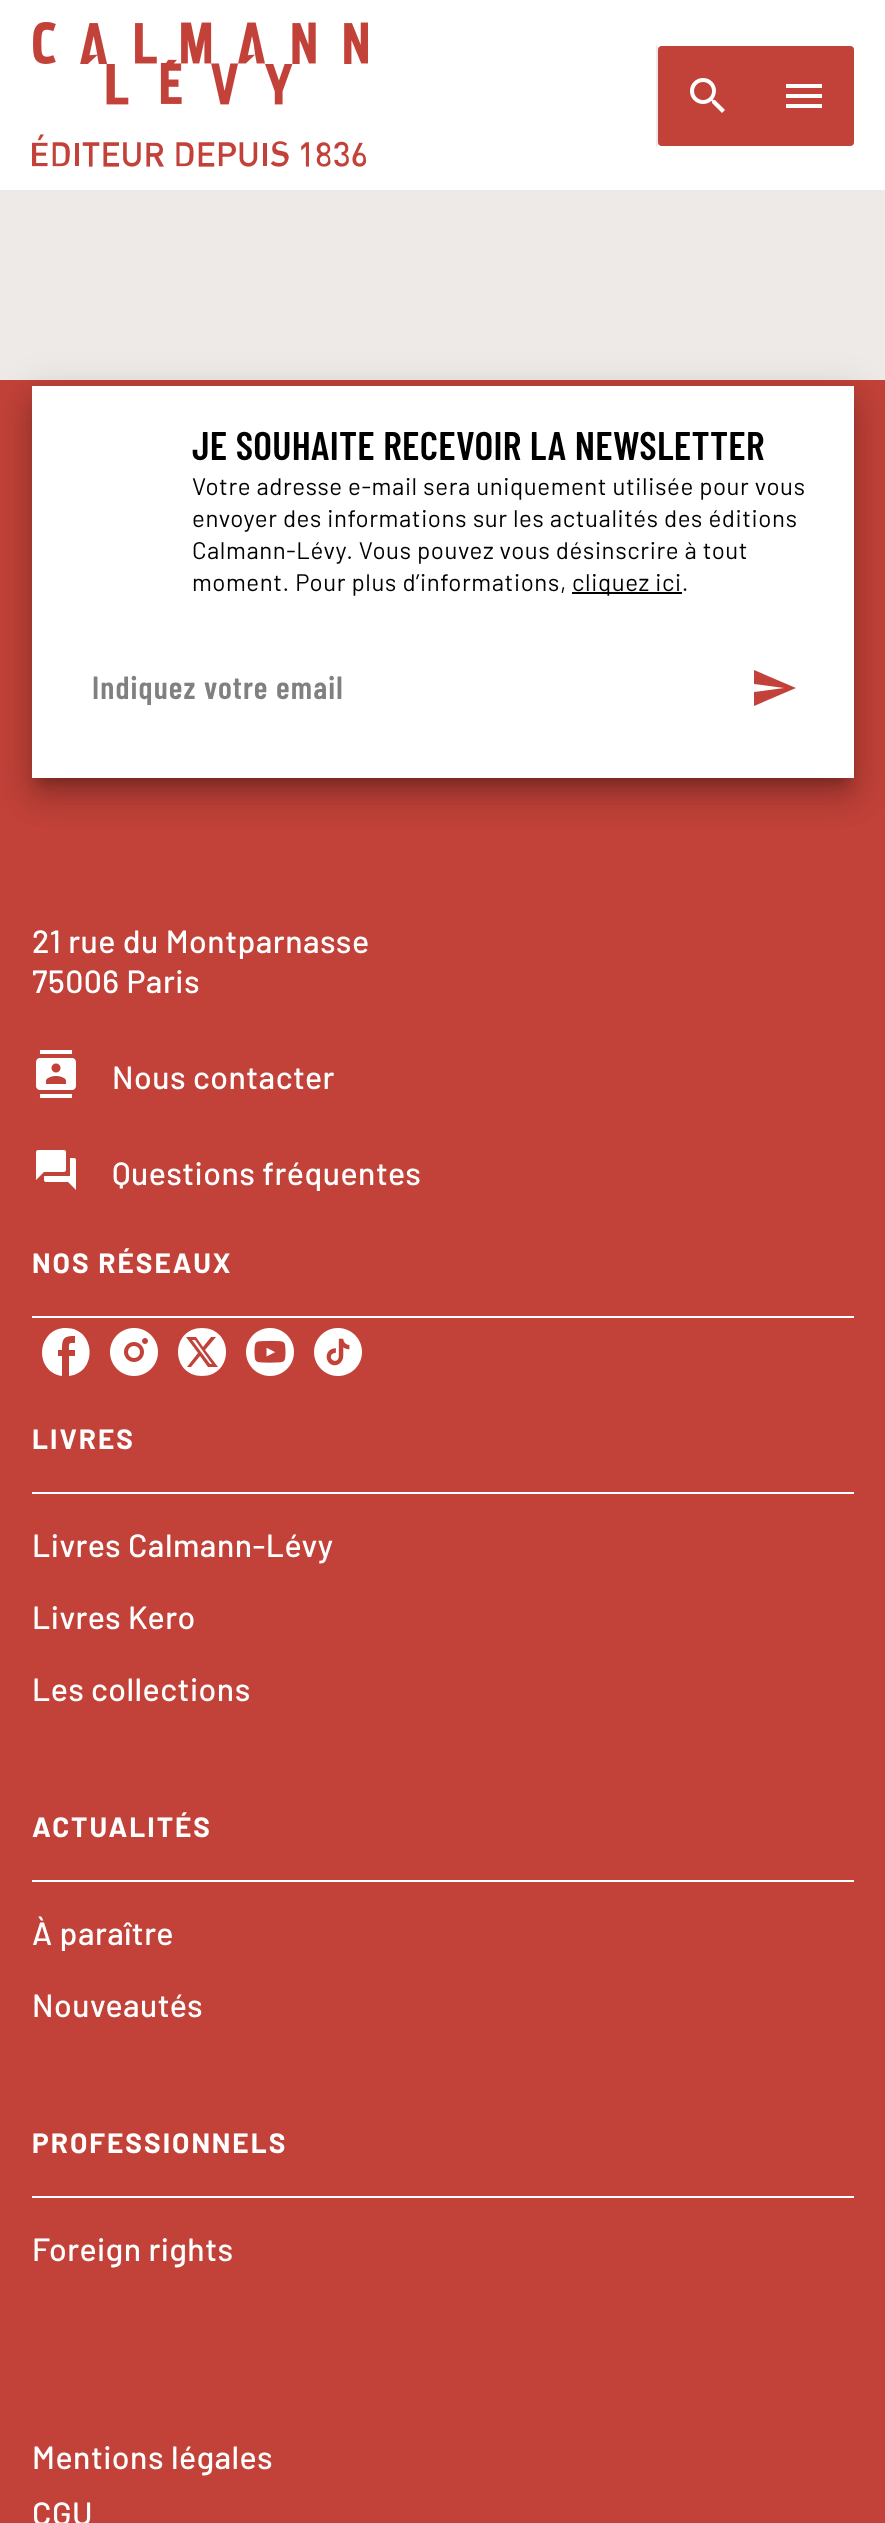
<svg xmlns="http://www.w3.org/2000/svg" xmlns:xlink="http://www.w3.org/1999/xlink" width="885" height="2523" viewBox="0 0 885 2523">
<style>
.cls-1{font:600 40px Barlow Condensed;letter-spacing:0.3px;fill:#000000}
.cls-2{font:24px Barlow;letter-spacing:0.6px;fill:#000000}
.cls-3{font:600 32px Barlow Condensed;letter-spacing:1.1px;fill:#808080}
.cls-4{font:500 32px Barlow;letter-spacing:0.5px;fill:#ffffff}
.cls-5{font:bold 28px Barlow;letter-spacing:2px;fill:#ffffff}
</style>
<rect width="100%" height="100%" fill="#eeeae7"/>
<rect fill="#ffffff" x="0" y="0" width="885" height="190"/>
<image xlink:href="image0.png" x="32" y="22" width="336" height="145"/>
<rect fill="#ebebeb" x="656" y="46" width="2" height="100"/>
<rect fill="#c24239" x="658" y="46" width="196" height="100" rx="4"/>
<image xlink:href="image1.png" x="690" y="78" width="35" height="35"/>
<path fill="#ffffff" d="M786 84H822V88H786ZM786 98V94H822V98ZM786 108V104H822V108Z"/>
<rect fill="#c24239" x="0" y="380" width="885" height="2143"/>
<rect fill="#000000" fill-opacity="0.12" filter="blur(18px)" x="26" y="388" width="834" height="404"/>
<rect fill="#000000" fill-opacity="0.14" filter="blur(14px)" x="30" y="404" width="826" height="396"/>
<rect fill="#000000" fill-opacity="0.2" filter="blur(6px)" x="38" y="404" width="810" height="380"/>
<rect fill="#ffffff" x="32" y="386" width="822" height="392"/>
<rect fill="#000000" x="572" y="592" width="110" height="2"/>
<path fill="#c24239" d="M754 706V692L784 688L754 684V670L796 688Z"/>
<image xlink:href="image2.png" x="36" y="1050" width="40" height="48"/>
<image xlink:href="image3.png" x="36" y="1150" width="40" height="40"/>
<rect fill="#ffffff" x="32" y="1316" width="822" height="2"/>
<path fill="#ffffff" d="M66 1328C96 1328 98 1373 69 1376V1356H75V1350H69C69 1343 68 1343 75 1343V1336C64 1336 62 1338 62 1350H58V1356H62V1376C33 1371 37 1328 66 1328Z"/>
<image xlink:href="image4.png" x="110" y="1328" width="48" height="48"/>
<path fill="#ffffff" d="M202 1328C170 1328 170 1376 202 1376C234 1376 234 1328 202 1328ZM186 1337H196L203 1347L211 1337H216L205 1350L218 1367H208L200 1356L191 1367H187L198 1353ZM192 1340L210 1364H212L195 1340Z"/>
<image xlink:href="image5.png" x="246" y="1328" width="48" height="48"/>
<image xlink:href="image6.png" x="314" y="1328" width="48" height="48"/>
<rect fill="#ffffff" x="32" y="1492" width="822" height="2"/>
<rect fill="#ffffff" x="32" y="1880" width="822" height="2"/>
<rect fill="#ffffff" x="32" y="2196" width="822" height="2"/>
<text class="cls-1" x="192" y="460">JE SOUHAITE RECEVOIR LA NEWSLETTER</text>
<text class="cls-2"><tspan x="192" y="495">Votre adresse e-mail sera uniquement utilisée pour vous</tspan><tspan x="192" y="527">envoyer des informations sur les actualités des éditions</tspan><tspan x="192" y="559">Calmann-Lévy. Vous pouvez vous désinscrire à tout</tspan><tspan x="192" y="591">moment. Pour plus d’informations,</tspan></text>
<text class="cls-2" x="572" y="591">cliquez ici.</text>
<text class="cls-3" x="92" y="699">Indiquez votre email</text>
<text class="cls-4"><tspan x="32" y="953">21 rue du Montparnasse</tspan><tspan x="32" y="993">75006 Paris</tspan></text>
<text class="cls-4" x="112" y="1089">Nous contacter</text>
<text class="cls-4" x="112" y="1185">Questions fréquentes</text>
<text class="cls-5" x="32" y="1273">NOS RÉSEAUX</text>
<text class="cls-5" x="32" y="1449">LIVRES</text>
<text class="cls-4" x="32" y="1557">Livres Calmann-Lévy</text>
<text class="cls-4" x="32" y="1629">Livres Kero</text>
<text class="cls-4" x="32" y="1701">Les collections</text>
<text class="cls-5" x="32" y="1837">ACTUALITÉS</text>
<text class="cls-4" x="32" y="1945">À paraître</text>
<text class="cls-4" x="32" y="2017">Nouveautés</text>
<text class="cls-5" x="32" y="2153">PROFESSIONNELS</text>
<text class="cls-4" x="32" y="2261">Foreign rights</text>
<text class="cls-4"><tspan x="32" y="2469">Mentions légales</tspan><tspan x="32" y="2525">CGU</tspan></text>
</svg>
